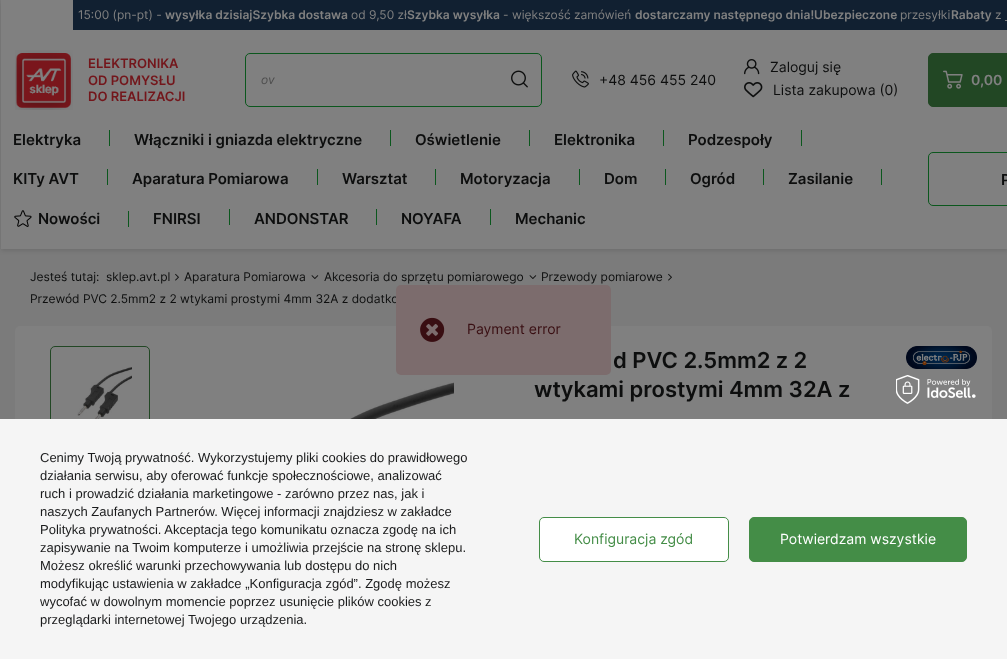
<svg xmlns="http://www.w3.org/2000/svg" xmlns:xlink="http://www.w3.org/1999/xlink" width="1007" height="659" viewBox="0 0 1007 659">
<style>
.cls-1{font:12px Inter;fill:#808080}
.cls-2{font:600 12px Inter;fill:#808080}
.cls-3{font:600 13px Inter;fill:#73161b}
.cls-4{font:italic 12px Inter;fill:#4c4c4c}
.cls-5{font:14px Inter;fill:#0d0e0e}
.cls-6{font:600 14px Inter;fill:#808080}
.cls-7{font:600 15px Inter;fill:#0d0e0e}
.cls-8{font:12px Inter;fill:#0d0e0e}
.cls-9{font:600 22px Inter;fill:#0d0e0e}
.cls-10{font:14px Inter;fill:#390e12}
.cls-11{font:13px Liberation Sans;fill:#1a1b1c}
.cls-12{font:14px Inter;fill:#448d47}
.cls-13{font:14px Inter;fill:#ffffff}
</style>
<rect width="100%" height="100%" fill="#7b7b7b"/>
<rect fill="#000000" fill-opacity="0.1" filter="blur(2px)" x="1" y="2" width="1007" height="249"/>
<rect fill="#808080" x="1" y="0" width="1006" height="249"/>
<rect fill="#112031" x="73" y="0" width="934" height="30"/>
<rect fill="#808080" x="1005" y="20" width="2" height="1"/>
<image xlink:href="image0.png" x="15" y="50" width="58" height="60"/>
<rect fill="none" stroke="#0b571d" x="245.5" y="53.5" width="296" height="53" rx="4.5"/>
<image xlink:href="image1.png" x="511" y="70" width="17" height="18"/>
<image xlink:href="image2.png" x="572" y="70" width="17" height="18"/>
<image xlink:href="image3.png" x="744" y="59" width="16" height="16"/>
<image xlink:href="image4.png" x="744" y="82" width="19" height="16"/>
<rect fill="#224724" stroke="#224724" x="928.5" y="53.5" width="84" height="53" rx="4.5"/>
<image xlink:href="image5.png" x="943" y="70" width="20" height="19"/>
<rect fill="#0b571d" x="109" y="130" width="1" height="16"/>
<rect fill="#0b571d" x="390" y="130" width="1" height="16"/>
<rect fill="#0b571d" x="529" y="130" width="1" height="16"/>
<rect fill="#0b571d" x="663" y="130" width="1" height="16"/>
<rect fill="#0b571d" x="801" y="130" width="1" height="16"/>
<rect fill="#0b571d" x="107" y="169" width="1" height="16"/>
<rect fill="#0b571d" x="317" y="169" width="1" height="16"/>
<rect fill="#0b571d" x="435" y="169" width="1" height="16"/>
<rect fill="#0b571d" x="579" y="169" width="1" height="16"/>
<rect fill="#0b571d" x="665" y="169" width="1" height="16"/>
<rect fill="#0b571d" x="763" y="169" width="1" height="16"/>
<rect fill="#0b571d" x="881" y="169" width="1" height="16"/>
<image xlink:href="image6.png" x="14" y="210" width="18" height="17"/>
<rect fill="#0b571d" x="128" y="211" width="1" height="16"/>
<rect fill="#0b571d" x="229" y="209" width="1" height="16"/>
<rect fill="#0b571d" x="376" y="209" width="1" height="16"/>
<rect fill="#0b571d" x="490" y="209" width="1" height="16"/>
<rect fill="none" stroke="#0b571d" x="928.5" y="152.5" width="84" height="53" rx="4.5"/>
<image xlink:href="image7.png" x="175" y="273" width="4" height="8"/>
<image xlink:href="image8.png" x="311" y="275" width="8" height="4"/>
<image xlink:href="image8.png" x="529" y="275" width="8" height="4"/>
<image xlink:href="image7.png" x="668" y="273" width="4" height="8"/>
<rect fill="#808080" x="15" y="326" width="977" height="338" rx="5"/>
<rect fill="none" stroke="#224724" x="50.5" y="346.5" width="99" height="99" rx="4.5"/>
<image xlink:href="image9.png" x="77" y="367" width="55" height="52"/>
<image xlink:href="image10.png" x="207" y="382" width="247" height="37"/>
<image xlink:href="image11.png" x="906" y="346" width="71" height="23"/>
<rect fill="#f5f5f5" x="0" y="419" width="1007" height="240"/>
<image xlink:href="image13.png" x="896" y="375" width="80" height="29"/>
<rect fill="#ffffff" stroke="#448d47" x="539.5" y="517.5" width="189" height="44" rx="4.5"/>
<rect fill="#448d47" stroke="#448d47" x="749.5" y="517.5" width="217" height="44" rx="4.5"/>
<text class="cls-1" x="78" y="19">15:00 (pn-pt) -</text>
<text class="cls-2" x="165" y="19">wysyłka dzisiajSzybka dostawa</text>
<text class="cls-1" x="351" y="19">od 9,50 zł</text>
<text class="cls-2" x="407" y="19">Szybka wysyłka</text>
<text class="cls-1" x="503" y="19">- większość zamówień</text>
<text class="cls-2" x="635" y="19">dostarczamy następnego dnia!Ubezpieczone</text>
<text class="cls-1" x="900" y="19">przesyłki</text>
<text class="cls-2" x="951" y="19">Rabaty</text>
<text class="cls-1" x="995" y="19">z</text>
<text class="cls-3"><tspan x="88" y="68">ELEKTRONIKA</tspan><tspan x="88" y="85">OD POMYSŁU</tspan><tspan x="88" y="101">DO REALIZACJI</tspan></text>
<text class="cls-4" x="261" y="84">ov</text>
<text class="cls-5" x="599" y="85">+48 456 455 240</text>
<text class="cls-5" x="770" y="72">Zaloguj się</text>
<text class="cls-5" x="773" y="95">Lista zakupowa (0)</text>
<text class="cls-6" x="971" y="85">0,00</text>
<text class="cls-7" x="13" y="145">Elektryka</text>
<text class="cls-7" x="134" y="145">Włączniki i gniazda elektryczne</text>
<text class="cls-7" x="415" y="145">Oświetlenie</text>
<text class="cls-7" x="554" y="145">Elektronika</text>
<text class="cls-7" x="688" y="145">Podzespoły</text>
<text class="cls-7" x="13" y="184">KITy AVT</text>
<text class="cls-7" x="132" y="184">Aparatura Pomiarowa</text>
<text class="cls-7" x="342" y="184">Warsztat</text>
<text class="cls-7" x="460" y="184">Motoryzacja</text>
<text class="cls-7" x="604" y="184">Dom</text>
<text class="cls-7" x="690" y="184">Ogród</text>
<text class="cls-7" x="788" y="184">Zasilanie</text>
<text class="cls-7" x="38" y="224">Nowości</text>
<text class="cls-7" x="153" y="224">FNIRSI</text>
<text class="cls-7" x="254" y="224">ANDONSTAR</text>
<text class="cls-7" x="401" y="224">NOYAFA</text>
<text class="cls-7" x="515" y="224">Mechanic</text>
<text class="cls-7" x="1001" y="185">P</text>
<text class="cls-8" x="30" y="281">Jesteś tutaj:</text>
<text class="cls-8" x="106" y="281">sklep.avt.pl</text>
<text class="cls-8" x="184" y="281">Aparatura Pomiarowa</text>
<text class="cls-8" x="324" y="281">Akcesoria do sprzętu pomiarowego</text>
<text class="cls-8" x="541" y="281">Przewody pomiarowe</text>
<text class="cls-8" x="30" y="303">Przewód PVC 2.5mm2 z 2 wtykami prostymi 4mm 32A z dodatko</text>
<text class="cls-9" x="613" y="368">d PVC 2.5mm2 z 2</text>
<text class="cls-9" x="534" y="397">wtykami prostymi 4mm 32A z</text>
<rect fill="#7c6c6d" x="396" y="285" width="215" height="90" rx="5"/>
<image xlink:href="image12.png" x="420" y="317" width="25" height="25"/>
<text class="cls-10" x="467" y="334">Payment error</text>
<text class="cls-11"><tspan x="40" y="462">Cenimy Twoją prywatność. Wykorzystujemy pliki cookies do prawidłowego</tspan><tspan x="40" y="480">działania serwisu, aby oferować funkcje społecznościowe, analizować</tspan><tspan x="40" y="498">ruch i prowadzić działania marketingowe - zarówno przez nas, jak i</tspan><tspan x="40" y="516">naszych Zaufanych Partnerów. Więcej informacji znajdziesz w zakładce</tspan><tspan x="40" y="534">Polityka prywatności. Akceptacja tego komunikatu oznacza zgodę na ich</tspan><tspan x="40" y="552">zapisywanie na Twoim komputerze i umożliwia przejście na stronę sklepu.</tspan><tspan x="40" y="570">Możesz określić warunki przechowywania lub dostępu do nich</tspan><tspan x="40" y="588">modyfikując ustawienia w zakładce „Konfiguracja zgód”. Zgodę możesz</tspan><tspan x="40" y="606">wycofać w dowolnym momencie poprzez usunięcie plików cookies z</tspan><tspan x="40" y="624">przeglądarki internetowej Twojego urządzenia.</tspan></text>
<text class="cls-12" x="574" y="544">Konfiguracja zgód</text>
<text class="cls-13" x="780" y="544">Potwierdzam wszystkie</text>
</svg>
